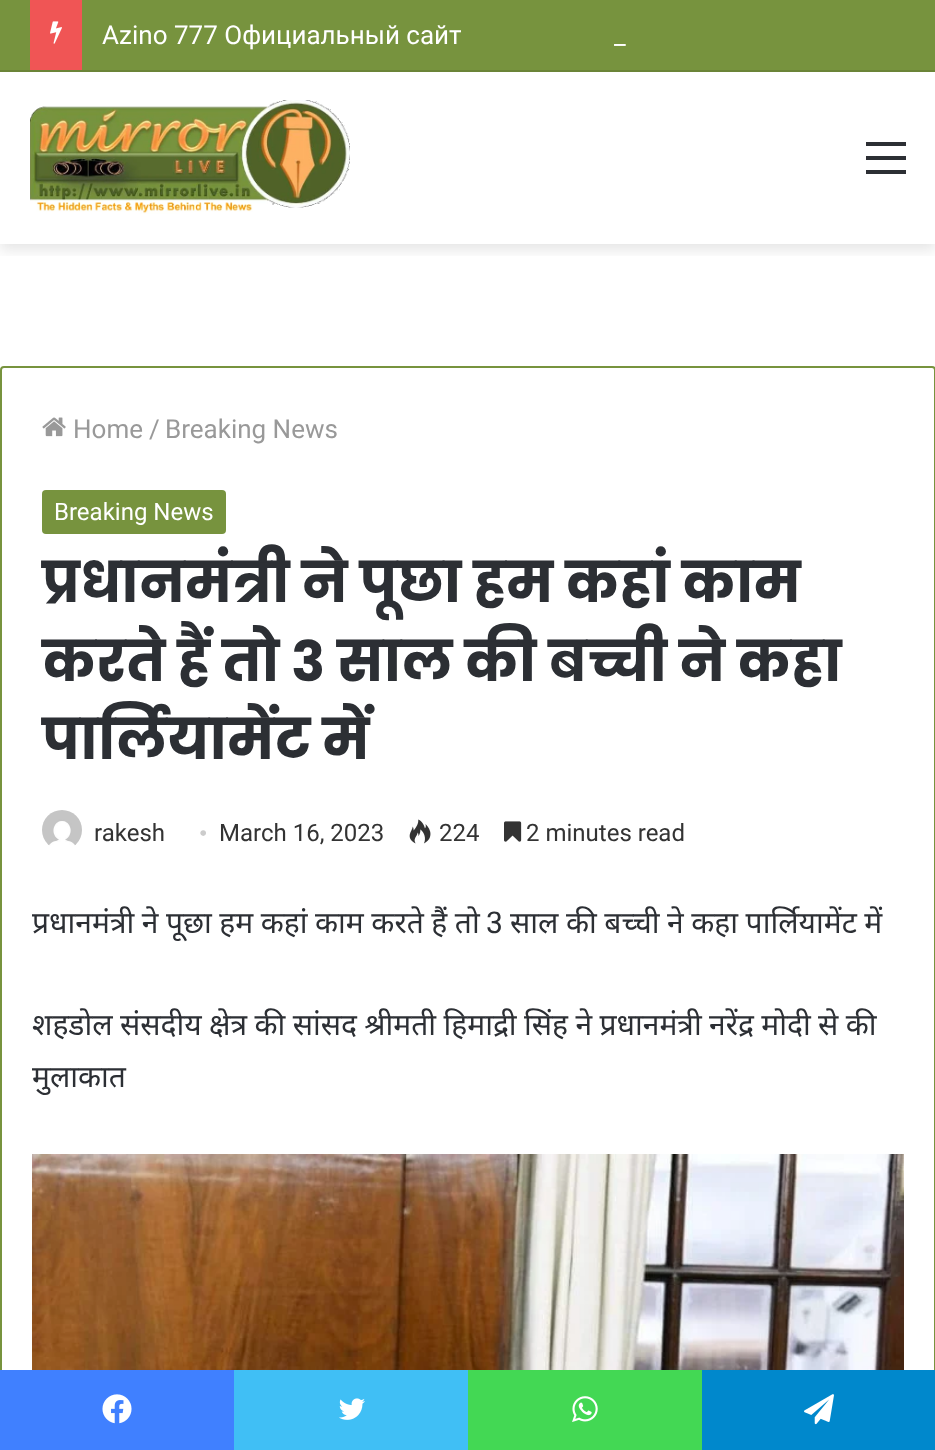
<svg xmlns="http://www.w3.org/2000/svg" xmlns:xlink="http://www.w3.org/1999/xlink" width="935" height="1450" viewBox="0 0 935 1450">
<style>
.cls-1{font:26px Roboto;fill:#ffffff}
.cls-2{font:26px Roboto;fill:#999999}
.cls-3{font:24px Roboto;fill:#ffffff}
.cls-4{font:bold 56px Poppins;fill:#2c2f34}
.cls-5{font:24px Roboto;fill:#333333}
.cls-6{font:24px Liberation Serif;fill:#cccccc}
.cls-7{font:30px Noto Sans;fill:#2c2f34}
.cls-8{font:30px Roboto;fill:#2c2f34}
</style>
<defs>
<clipPath id="clip1"><rect x="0" y="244" width="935" height="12"/></clipPath>
</defs>
<rect width="100%" height="100%" fill="#ffffff"/>
<g clip-path="url(#clip1)">
<rect fill="#000000" fill-opacity="0.1" filter="blur(7px)" x="0" y="78" width="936" height="172"/>
</g>
<rect fill="#77933e" x="0" y="0" width="935" height="70"/>
<rect fill="#6b8438" x="0" y="70" width="935" height="2"/>
<rect fill="#f05555" x="30" y="0" width="52" height="70"/>
<image xlink:href="image0.png" x="50" y="21" width="12" height="23"/>
<image xlink:href="image1.png" x="30" y="100" width="320" height="114"/>
<rect fill="#2c2f34" x="866" y="156" width="40" height="4"/>
<rect fill="#2c2f34" x="866" y="142" width="40" height="4"/>
<rect fill="#2c2f34" x="866" y="170" width="40" height="4"/>
<rect fill="none" stroke="#77933e" stroke-width="2" x="1" y="367" width="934" height="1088" rx="3"/>
<image xlink:href="image2.png" x="42" y="417" width="24" height="20"/>
<rect fill="#77933e" x="42" y="490" width="184" height="44" rx="4"/>
<image xlink:href="image3.png" x="42" y="810" width="40" height="36"/>
<image xlink:href="image4.png" x="409" y="819" width="22" height="25"/>
<image xlink:href="image5.png" x="504" y="821" width="18" height="21"/>
<image xlink:href="image6.png" x="32" y="1154" width="872" height="216"/>
<rect fill="#4080ff" x="0" y="1370" width="234" height="80"/>
<image xlink:href="image7.png" x="102" y="1394" width="30" height="30"/>
<rect fill="#40bff5" x="234" y="1370" width="234" height="80"/>
<image xlink:href="image8.png" x="339" y="1398" width="26" height="22"/>
<rect fill="#43d854" x="468" y="1370" width="234" height="80"/>
<image xlink:href="image9.png" x="572" y="1396" width="26" height="26"/>
<rect fill="#0088cc" x="702" y="1370" width="233" height="80"/>
<image xlink:href="image10.png" x="804" y="1394" width="30" height="31"/>
<text class="cls-1" x="102" y="44">Azino 777 Официальный сайт</text>
<text class="cls-1" x="614" y="44">_</text>
<text class="cls-2" x="73" y="438">Home</text>
<text class="cls-2" x="149" y="438">/</text>
<text class="cls-2" x="165" y="438">Breaking News</text>
<text class="cls-3" x="54" y="520">Breaking News</text>
<text class="cls-4"><tspan x="42" y="602">प्रधानमंत्री ने पूछा हम कहां काम</tspan><tspan x="42" y="681">करते हैं तो 3 साल की बच्ची ने कहा</tspan><tspan x="42" y="759">पार्लियामेंट में</tspan></text>
<text class="cls-5" x="94" y="841">rakesh</text>
<text class="cls-6" x="199" y="841">•</text>
<text class="cls-5" x="219" y="841">March 16, 2023</text>
<text class="cls-5" x="439" y="841">224</text>
<text class="cls-5" x="526" y="841">2 minutes read</text>
<text class="cls-7" x="32" y="933" word-spacing="-0.25">प्रधानमंत्री ने पूछा हम कहां काम करते हैं तो</text>
<text class="cls-8" x="486" y="933">3</text>
<text class="cls-7" x="510" y="933" word-spacing="-0.25">साल की बच्ची ने कहा पार्लियामेंट में</text>
<text class="cls-7"><tspan x="32" y="1035" word-spacing="-0.4">शहडोल संसदीय क्षेत्र की सांसद श्रीमती हिमाद्री सिंह ने प्रधानमंत्री नरेंद्र मोदी से की</tspan><tspan x="32" y="1087">मुलाकात</tspan></text>
</svg>
